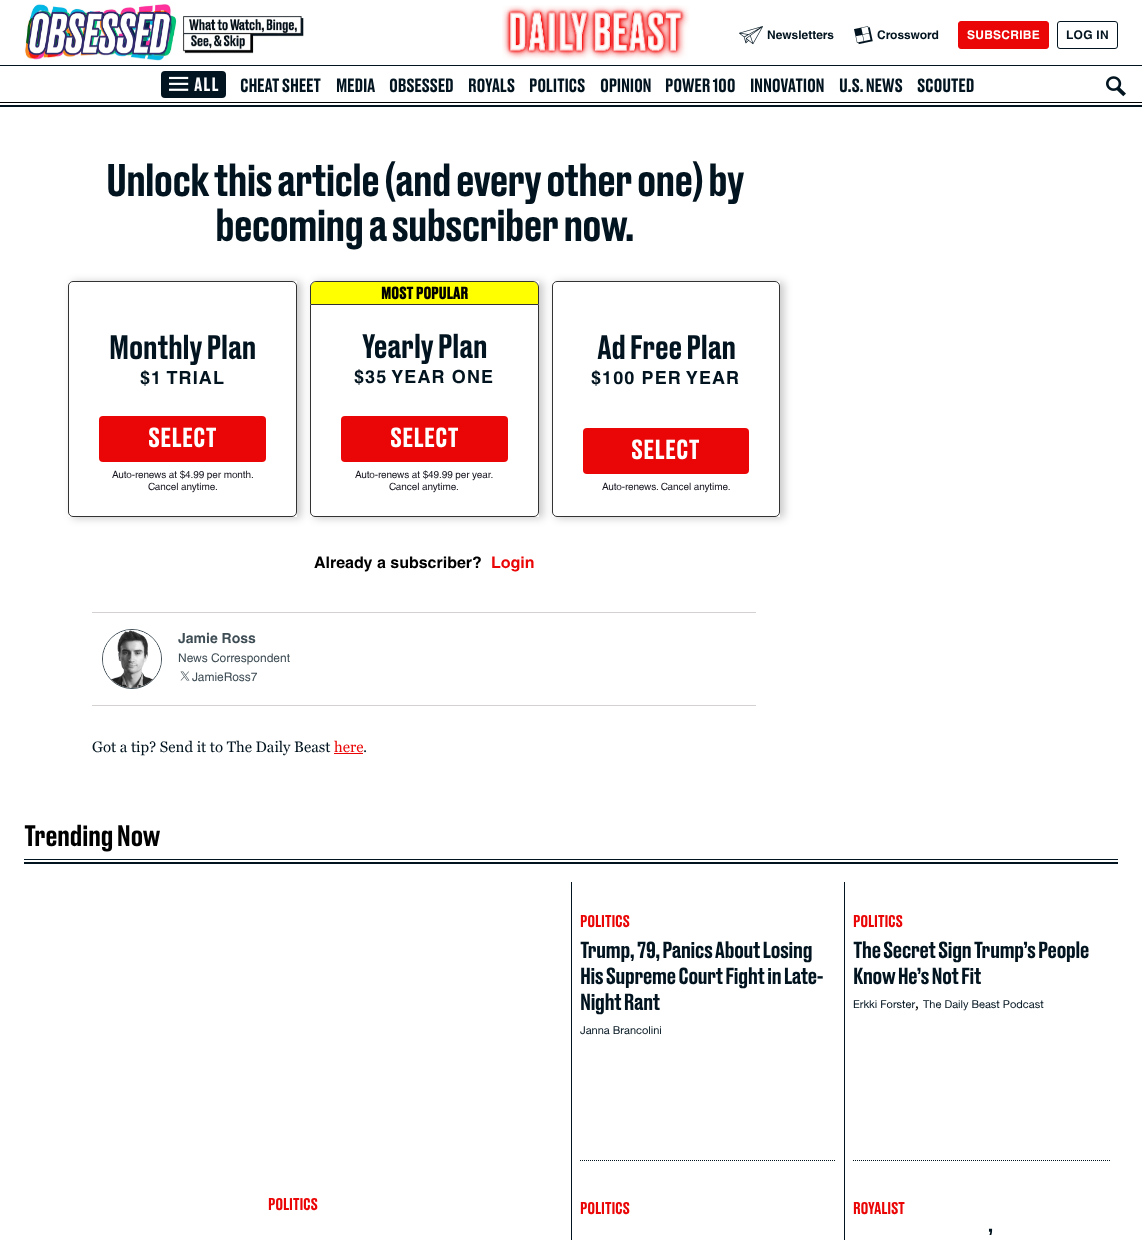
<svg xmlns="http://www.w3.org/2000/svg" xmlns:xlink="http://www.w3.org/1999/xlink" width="1142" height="1240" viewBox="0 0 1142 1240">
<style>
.cls-1{font:bold 12px Helvetica;fill:#02141f}
.cls-2{font:bold 12px Helvetica;letter-spacing:0.25px;fill:#ffffff}
.cls-3{font:bold 12px Helvetica;letter-spacing:0.25px;fill:#02141f}
.cls-4{font:500 18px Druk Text;letter-spacing:1px;fill:#ffffff}
.cls-5{font:500 18px Druk Text;letter-spacing:-0.25px;fill:#02141f}
.cls-6{font:500 43px Druk Text;letter-spacing:-1.2px;fill:#02141f}
.cls-7{font:500 32px Druk Text;letter-spacing:-0.5px;fill:#02141f}
.cls-8{font:bold 18px Helvetica;letter-spacing:1.1px;fill:#02141f}
.cls-9{font:500 26px Druk Text;letter-spacing:0.25px;fill:#ffffff}
.cls-10{font:10px Helvetica;letter-spacing:-0.1px;fill:#14141f}
.cls-11{font:bold 16px Druk Text;fill:#000000}
.cls-12{font:bold 16px Helvetica;fill:#000000}
.cls-13{font:bold 16px Helvetica;fill:#ea0606}
.cls-14{font:bold 14px Helvetica;fill:#3f4d55}
.cls-15{font:12px Helvetica;fill:#3f4d55}
.cls-16{font:15px Georgia;fill:#02141f}
.cls-17{font:15px Georgia;fill:#ea0606}
.cls-18{font:500 28px Druk Text;letter-spacing:-0.5px;fill:#000000}
.cls-19{font:500 16px Druk Text;letter-spacing:-0.25px;fill:#ea0606}
.cls-20{font:500 22px Druk Text;letter-spacing:-0.65px;fill:#02141f}
.cls-21{font:11px Helvetica Neue;fill:#02141f}
.cls-22{font:16px Liberation Serif;fill:#000000}
</style>
<defs>
<clipPath id="clip1"><path d="M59 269H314V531H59ZM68 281H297V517H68Z" clip-rule="evenodd"/></clipPath>
<clipPath id="clip2"><path d="M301 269H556V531H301ZM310 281H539V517H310Z" clip-rule="evenodd"/></clipPath>
<clipPath id="clip3"><path d="M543 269H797V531H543ZM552 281H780V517H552Z" clip-rule="evenodd"/></clipPath>
</defs>
<rect width="100%" height="100%" fill="#ffffff"/>
<rect fill="#02141f" x="0" y="105" width="1142" height="2"/>
<image xlink:href="image0.png" x="24" y="4" width="280" height="57"/>
<image xlink:href="image1.png" x="502" y="5" width="188" height="55"/>
<image xlink:href="image2.png" x="739" y="26" width="24" height="19"/>
<image xlink:href="image3.png" x="854" y="26" width="19" height="19"/>
<rect fill="#ea0606" stroke="#ea0606" x="958.5" y="21.5" width="90" height="27" rx="2.5"/>
<rect fill="none" stroke="#02141f" x="1057.5" y="21.5" width="60" height="27" rx="2.5"/>
<rect fill="#02141f" x="0" y="65" width="1142" height="1"/>
<rect fill="#02141f" x="161" y="71" width="65" height="27" rx="4"/>
<image xlink:href="image4.png" x="169" y="76" width="20" height="15"/>
<image xlink:href="image5.png" x="1106" y="76" width="20" height="21"/>
<rect fill="#000000" x="0" y="102" width="1142" height="1"/>
<g clip-path="url(#clip1)">
<rect fill="#000000" fill-opacity="0.22" filter="blur(4px)" x="72" y="282" width="229" height="236"/>
</g>
<rect fill="none" stroke="#333333" x="68.5" y="281.5" width="228" height="235" rx="4.5"/>
<rect fill="#ea0606" x="99" y="416" width="167" height="46" rx="4"/>
<g clip-path="url(#clip2)">
<rect fill="#000000" fill-opacity="0.22" filter="blur(4px)" x="314" y="282" width="229" height="236"/>
</g>
<path fill="#ffff00" d="M316 282H533C536 282 538 284 538 287V304H311V287C311 284 313 282 316 282Z"/>
<path fill="#333333" fill-rule="evenodd" d="M316 281H533C536 281 539 284 539 287V304H310V287C310 284 313 281 316 281ZM316 282H533C536 282 538 284 538 287V304H311V287C311 284 313 282 316 282Z"/>
<path fill="none" stroke="#333333" d="M310.5 304.5H538.5V512C538.5 514.5 536.5 516.5 534 516.5H315C312.5 516.5 310.5 514.5 310.5 512Z"/>
<rect fill="#ea0606" x="341" y="416" width="167" height="46" rx="4"/>
<g clip-path="url(#clip3)">
<rect fill="#000000" fill-opacity="0.22" filter="blur(4px)" x="556" y="282" width="228" height="236"/>
</g>
<rect fill="none" stroke="#333333" x="552.5" y="281.5" width="227" height="235" rx="4.5"/>
<rect fill="#ea0606" x="583" y="428" width="166" height="46" rx="4"/>
<rect fill="#d5d1d1" x="92" y="612" width="664" height="1"/>
<circle fill="none" stroke="#3f4d55" cx="132" cy="659" r="29.5"/>
<image xlink:href="image6.png" x="103" y="630" width="58" height="58"/>
<image xlink:href="image7.png" x="180" y="671" width="10" height="10"/>
<rect fill="#d5d1d1" x="92" y="705" width="664" height="1"/>
<rect fill="#ea0606" x="334" y="753" width="29" height="1"/>
<rect fill="#02141f" x="24" y="859" width="1094" height="1"/>
<rect fill="#02141f" x="24" y="862" width="1094" height="2"/>
<path fill="none" stroke="#02141f" stroke-dasharray="1 1" d="M580 1160.5H836"/>
<path fill="none" stroke="#02141f" stroke-dasharray="1 1" d="M853 1160.5H1110"/>
<rect fill="#02141f" x="844" y="882" width="1" height="358"/>
<rect fill="#02141f" x="571" y="882" width="1" height="358"/>
<text class="cls-1" x="767" y="39">Newsletters</text>
<text class="cls-1" x="877" y="39">Crossword</text>
<text class="cls-2" x="967" y="39">SUBSCRIBE</text>
<text class="cls-3" x="1066" y="39">LOG IN</text>
<text class="cls-4" x="194" y="91">ALL</text>
<text class="cls-5" x="240" y="92">CHEAT SHEET</text>
<text class="cls-5" x="336" y="92">MEDIA</text>
<text class="cls-5" x="389" y="92">OBSESSED</text>
<text class="cls-5" x="468" y="92">ROYALS</text>
<text class="cls-5" x="529" y="92">POLITICS</text>
<text class="cls-5" x="600" y="92">OPINION</text>
<text class="cls-5" x="665" y="92">POWER 100</text>
<text class="cls-5" x="750" y="92">INNOVATION</text>
<text class="cls-5" x="839" y="92">U.S. NEWS</text>
<text class="cls-5" x="917" y="92">SCOUTED</text>
<text class="cls-6" x="106" y="196">Unlock this article (and every other one) by</text>
<text class="cls-6" x="215" y="241">becoming a subscriber now.</text>
<text class="cls-7" x="109" y="359">Monthly Plan</text>
<text class="cls-8" x="140" y="384">$1 TRIAL</text>
<text class="cls-9" x="148" y="447">SELECT</text>
<text class="cls-10" x="112" y="478">Auto-renews at $4.99 per month.</text>
<text class="cls-10" x="148" y="490">Cancel anytime.</text>
<text class="cls-11" x="381" y="299">MOST POPULAR</text>
<text class="cls-7" x="362" y="358">Yearly Plan</text>
<text class="cls-8" x="354" y="383">$35 YEAR ONE</text>
<text class="cls-9" x="390" y="447">SELECT</text>
<text class="cls-10" x="355" y="478">Auto-renews at $49.99 per year.</text>
<text class="cls-10" x="389" y="490">Cancel anytime.</text>
<text class="cls-7" x="597" y="359">Ad Free Plan</text>
<text class="cls-8" x="591" y="384">$100 PER YEAR</text>
<text class="cls-9" x="631" y="459">SELECT</text>
<text class="cls-10" x="602" y="490">Auto-renews. Cancel anytime.</text>
<text class="cls-12" x="314" y="568">Already a subscriber?</text>
<text class="cls-13" x="491" y="568">Login</text>
<text class="cls-14" x="178" y="643">Jamie Ross</text>
<text class="cls-15" x="178" y="662">News Correspondent</text>
<text class="cls-15" x="192" y="681">JamieRoss7</text>
<text class="cls-16" x="92" y="752">Got a tip? Send it to The Daily Beast</text>
<text class="cls-17" x="334" y="752">here</text>
<text class="cls-16" x="363" y="752">.</text>
<text class="cls-18" x="24" y="846">Trending Now</text>
<text class="cls-19" x="580" y="927">POLITICS</text>
<text class="cls-20"><tspan x="580" y="958">Trump, 79, Panics About Losing</tspan><tspan x="580" y="984">His Supreme Court Fight in Late-</tspan><tspan x="580" y="1010">Night Rant</tspan></text>
<text class="cls-21" x="580" y="1034">Janna Brancolini</text>
<text class="cls-19" x="853" y="927">POLITICS</text>
<text class="cls-20"><tspan x="853" y="958">The Secret Sign Trump’s People</tspan><tspan x="853" y="984">Know He’s Not Fit</tspan></text>
<text class="cls-21" x="853" y="1008">Erkki Forster</text>
<text class="cls-22" x="915" y="1008">,</text>
<text class="cls-21" x="923" y="1008">The Daily Beast Podcast</text>
<text class="cls-19" x="268" y="1210">POLITICS</text>
<text class="cls-19" x="580" y="1214">POLITICS</text>
<text class="cls-19" x="853" y="1214">ROYALIST</text>
<text class="cls-20" x="988" y="1245">’</text>
</svg>
